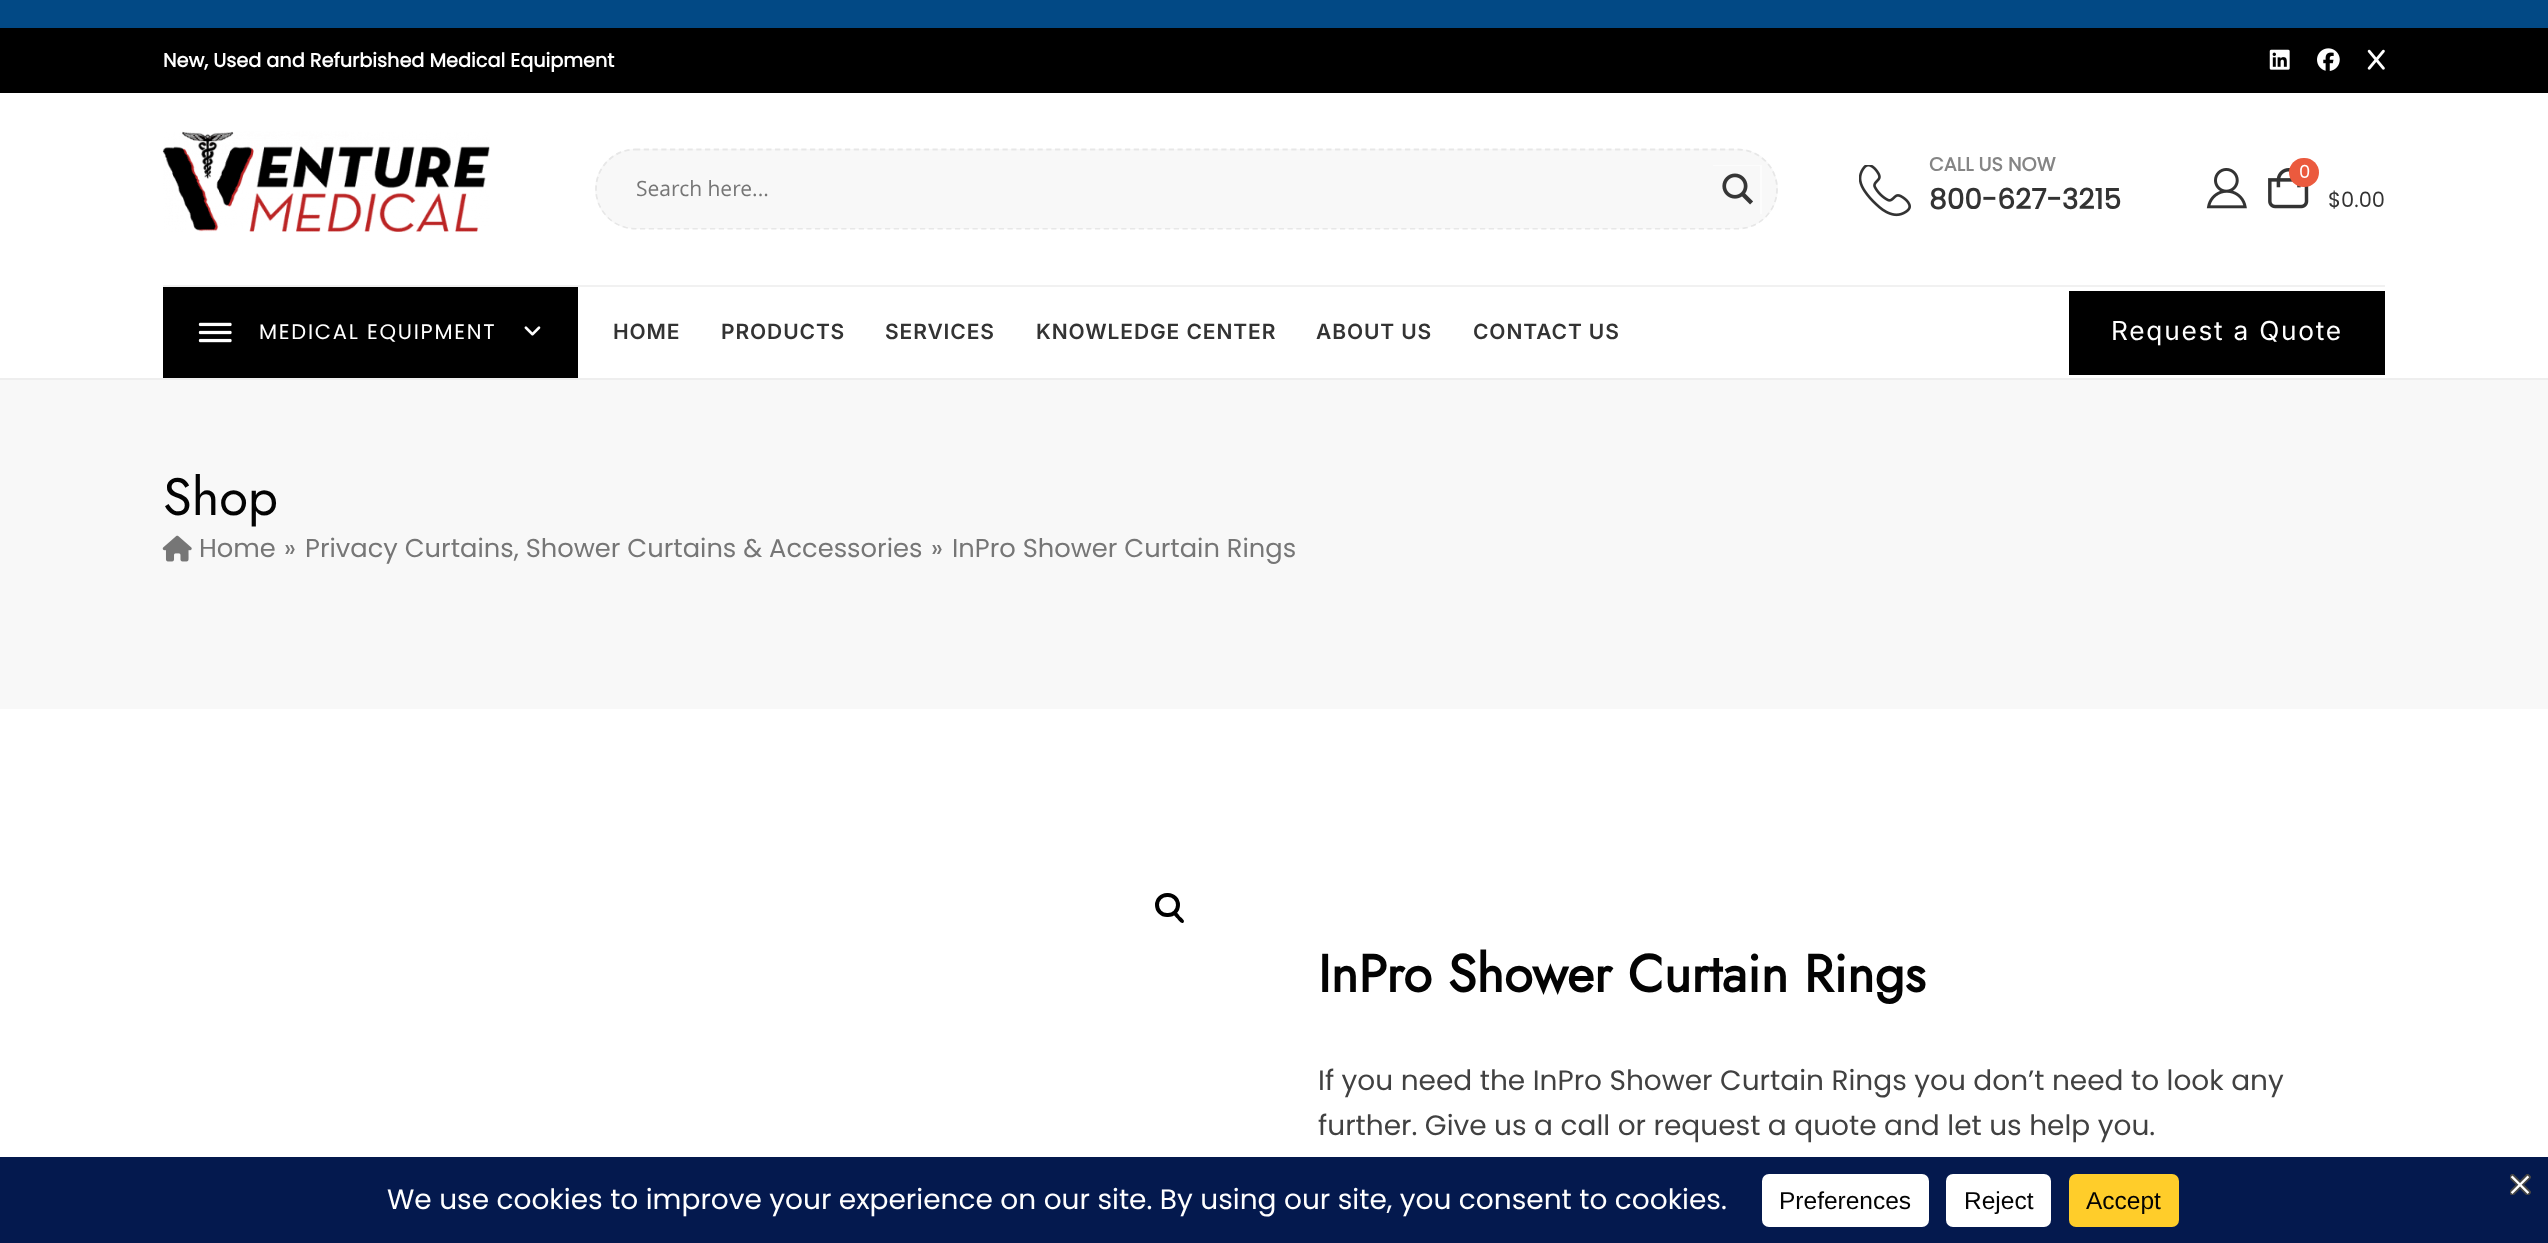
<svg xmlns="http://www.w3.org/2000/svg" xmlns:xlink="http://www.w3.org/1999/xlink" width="2548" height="1243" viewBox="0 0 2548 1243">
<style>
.cls-1{font:bold 19.25px Poppins;fill:#ffffff}
.cls-2{font:21px Open Sans;fill:#767676}
.cls-3{font:bold 19.25px Poppins;fill:#858585}
.cls-4{font:bold 28px Poppins;fill:#333333}
.cls-5{font:18px Poppins;fill:#ffffff}
.cls-6{font:21px Poppins;fill:#333333}
.cls-7{font:21px Poppins;letter-spacing:1.75px;fill:#ffffff}
.cls-8{font:600 21px Inter;letter-spacing:0.9px;fill:#333333}
.cls-9{font:26.25px Inter;letter-spacing:1.75px;fill:#ffffff}
.cls-10{font:52.5px Jost;fill:#030303}
.cls-11{font:25.75px Poppins;fill:#767676}
.cls-12{font:bold 52.5px Jost;fill:#030303}
.cls-13{font:28px Poppins;fill:#414141}
.cls-14{font:28px Poppins;fill:#ffffff}
.cls-15{font:24.5px Liberation Sans;fill:#030303}
</style>
<defs>
<clipPath id="clip1"><rect x="1713" y="165" width="49" height="49"/></clipPath>
</defs>
<rect width="100%" height="100%" fill="#ffffff"/>
<rect fill="#024985" x="0" y="0" width="2548" height="28"/>
<rect fill="#000000" x="0" y="28" width="2548" height="65"/>
<image xlink:href="image0.png" x="2269" y="49" width="21" height="21"/>
<image xlink:href="image1.png" x="2317" y="48" width="23" height="23"/>
<image xlink:href="image2.png" x="2367" y="49" width="18" height="21"/>
<image xlink:href="image3.png" x="162" y="131" width="328" height="101"/>
<rect fill="#f8f8f8" x="595" y="149" width="1183" height="80" rx="40"/>
<path fill="none" stroke="#e7e7e7" stroke-width="1.8" stroke-dasharray="5.25 3.5" d="M635 149.5H1738C1759.5 149.5 1777 167.5 1777 189C1777 210.5 1759.5 228.5 1738 228.5H635C613.5 228.5 596 210.5 596 189C596 167.5 613.5 149.5 635 149.5Z"/>
<rect fill="#f8f8f8" x="597" y="151" width="1179" height="77" rx="38.5"/>
<g clip-path="url(#clip1)">
<path fill="#fcfcfc" fill-rule="evenodd" d="M1540 228H1738C1759 228 1776 211 1776 190C1776 168 1759 151 1738 151H1540ZM1712 166H1760V215H1712Z"/>
</g>
<image xlink:href="image4.png" x="1722" y="173" width="31" height="32"/>
<image xlink:href="image5.png" x="1859" y="165" width="52" height="52"/>
<image xlink:href="image6.png" x="2206" y="168" width="41" height="41"/>
<image xlink:href="image7.png" x="2268" y="168" width="41" height="41"/>
<rect fill="#eb5a3e" x="2289" y="158" width="30" height="29" rx="14.5"/>
<rect fill="#eeeeee" x="0" y="378" width="2548" height="2"/>
<rect fill="#f1f1f1" x="163" y="285" width="2222" height="2"/>
<rect fill="#000000" x="163" y="287" width="415" height="91"/>
<image xlink:href="image8.png" x="198" y="322" width="34" height="21"/>
<image xlink:href="image9.png" x="524" y="326" width="17" height="10"/>
<rect fill="#000000" x="2069" y="291" width="316" height="84"/>
<rect fill="#f8f8f8" x="0" y="380" width="2548" height="329"/>
<image xlink:href="image10.png" x="162" y="535" width="30" height="27"/>
<rect fill="none" stroke="#000000" stroke-width="4" x="1157" y="895" width="21" height="20" rx="10"/>
<path fill="#000000" d="M1174 912.5C1176 910.5 1179 915 1180 916.5C1181 917.5 1185.5 920.5 1183.5 922.5C1181.5 924.5 1178.5 920 1177.5 919C1176.5 917.5 1172 914.5 1174 912.5Z"/>
<rect fill="#04194e" x="0" y="1157" width="2548" height="86"/>
<image xlink:href="image11.png" x="2510" y="1174" width="21" height="21"/>
<rect fill="#ffffff" x="1762" y="1174" width="167" height="53" rx="7"/>
<rect fill="#ffffff" x="1946" y="1174" width="105" height="53" rx="7"/>
<rect fill="#ffcd2a" x="2069" y="1174" width="110" height="53" rx="7"/>
<text class="cls-1" x="163" y="67">New, Used and Refurbished Medical Equipment</text>
<text class="cls-2" x="636" y="196">Search here...</text>
<text class="cls-3" x="1929" y="171">CALL US NOW</text>
<text class="cls-4" x="1929" y="209">800-627-3215</text>
<text class="cls-5" x="2299" y="178">0</text>
<text class="cls-6" x="2328" y="207">$0.00</text>
<text class="cls-7" x="259" y="339">MEDICAL EQUIPMENT</text>
<text class="cls-8" x="613" y="339">HOME</text>
<text class="cls-8" x="721" y="339">PRODUCTS</text>
<text class="cls-8" x="885" y="339">SERVICES</text>
<text class="cls-8" x="1036" y="339">KNOWLEDGE CENTER</text>
<text class="cls-8" x="1316" y="339">ABOUT US</text>
<text class="cls-8" x="1473" y="339">CONTACT US</text>
<text class="cls-9" x="2111" y="340">Request a Quote</text>
<text class="cls-10" x="163" y="515">Shop</text>
<text class="cls-11" x="199" y="557">Home</text>
<text class="cls-11" x="284" y="557">»</text>
<text class="cls-11" x="305" y="557">Privacy Curtains, Shower Curtains &amp; Accessories</text>
<text class="cls-11" x="931" y="557">»</text>
<text class="cls-11" x="952" y="557">InPro Shower Curtain Rings</text>
<text class="cls-12" x="1318" y="992">InPro Shower Curtain Rings</text>
<text class="cls-13"><tspan x="1318" y="1090">If you need the InPro Shower Curtain Rings you don’t need to look any</tspan><tspan x="1318" y="1135">further. Give us a call or request a quote and let us help you.</tspan></text>
<text class="cls-14" x="387" y="1209">We use cookies to improve your experience on our site. By using our site, you consent to cookies.</text>
<text class="cls-15" x="1779" y="1209">Preferences</text>
<text class="cls-15" x="1964" y="1209">Reject</text>
<text class="cls-15" x="2086" y="1209">Accept</text>
</svg>
